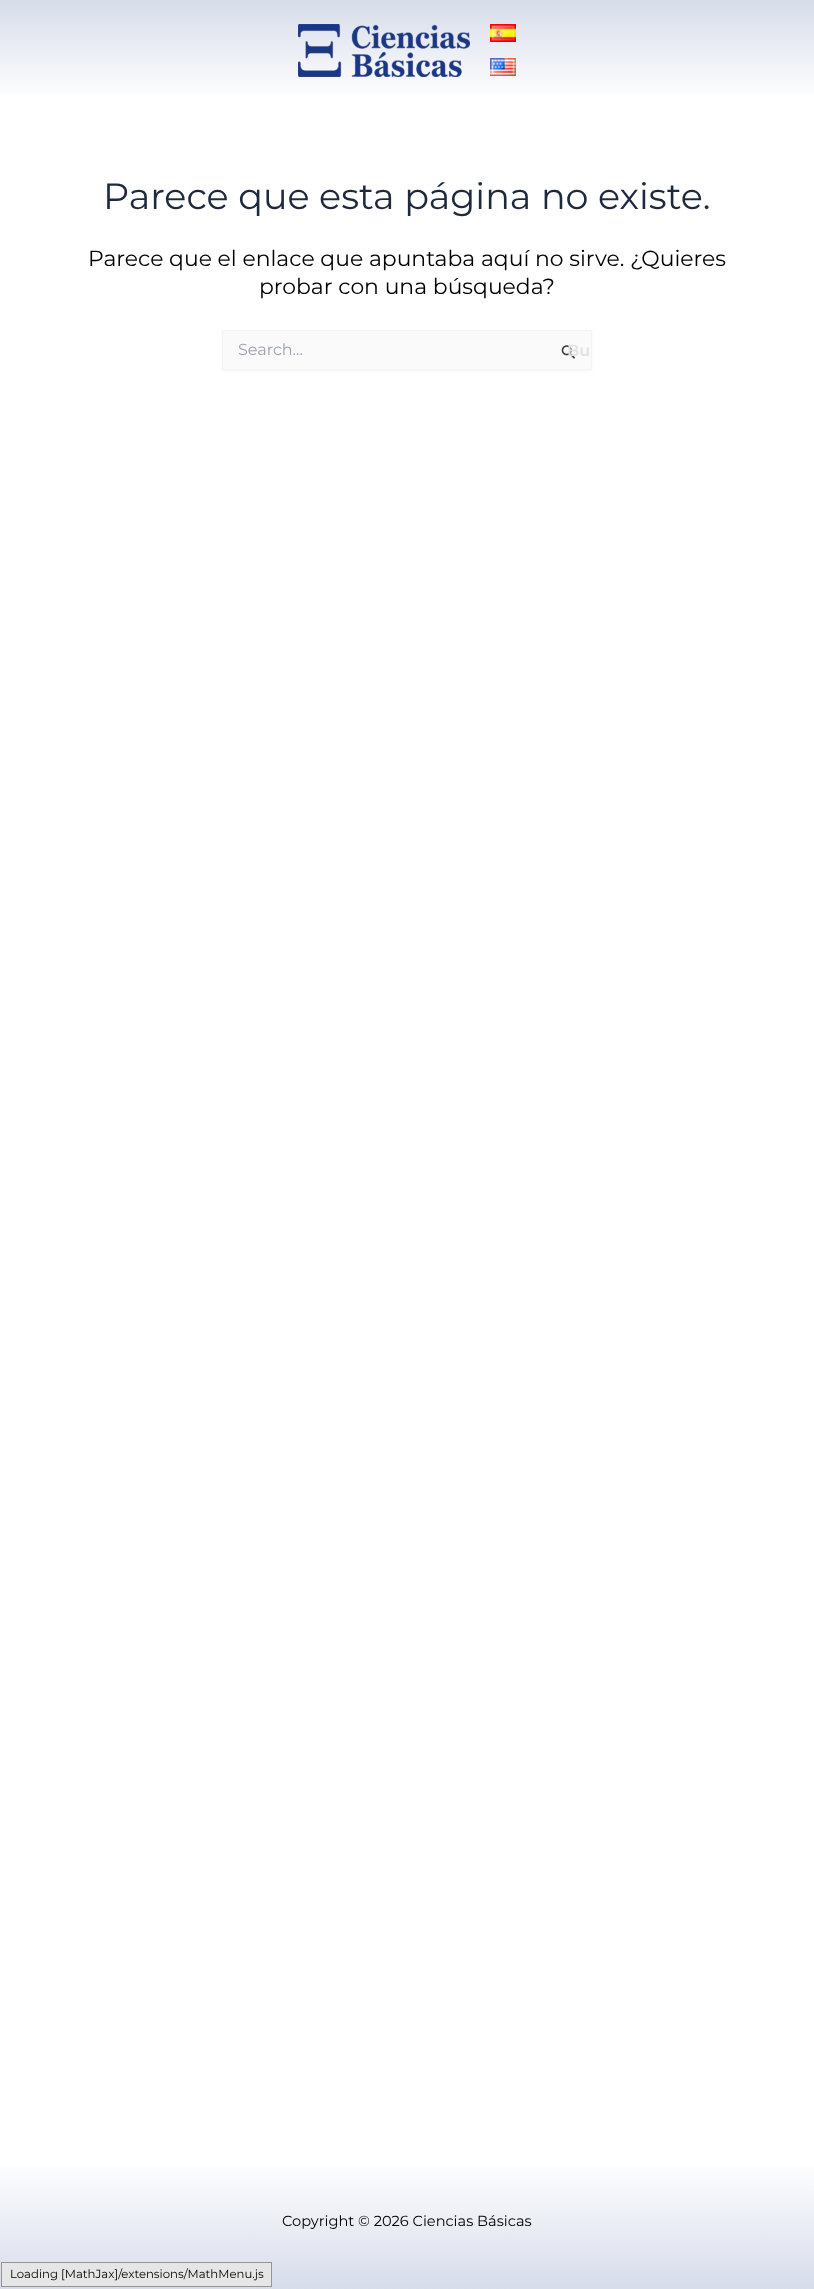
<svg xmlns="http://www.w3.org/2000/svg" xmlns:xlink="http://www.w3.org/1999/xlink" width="814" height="2289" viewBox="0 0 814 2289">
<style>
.cls-1{font:36.5px Montserrat;fill:#1e293b}
.cls-2{font:21.9px Montserrat;fill:#000000}
.cls-3{font:16px Montserrat;fill:#9ca3af}
.cls-4{font:600 16px Montserrat;fill:#e2e2e2}
.cls-5{font:14.6px Montserrat;fill:#000000}
.cls-6{font:11.7px Montserrat;fill:#000000}
</style>
<defs>
<linearGradient id="g1" gradientUnits="userSpaceOnUse" x1="407" y1="0" x2="407" y2="100"><stop offset="0" stop-color="#d7dcea"/><stop offset="1" stop-color="#ffffff"/></linearGradient>
<linearGradient id="g2" gradientUnits="userSpaceOnUse" x1="407" y1="2289" x2="407" y2="2159"><stop offset="0" stop-color="#d7dcea"/><stop offset="1" stop-color="#ffffff"/></linearGradient>
</defs>
<rect width="100%" height="100%" fill="#ffffff"/>
<rect fill="url(#g1)" x="0" y="0" width="814" height="94"/>
<image xlink:href="image0.png" x="298" y="24" width="172" height="53"/>
<image xlink:href="image1.png" x="490" y="24" width="26" height="18"/>
<image xlink:href="image2.png" x="490" y="58" width="26" height="18"/>
<rect fill="#000000" fill-opacity="0.05" filter="blur(1px)" x="222" y="331" width="370" height="40" rx="2"/>
<rect fill="#fafafa" stroke="#f2f5f7" x="222.5" y="330.5" width="369" height="39" rx="1.5"/>
<image xlink:href="image3.png" x="561" y="345" width="14" height="14"/>
<rect fill="url(#g2)" x="0" y="2167" width="814" height="122"/>
<rect fill="#e6e6e6" stroke="#959595" x="1.5" y="2262.5" width="270" height="24"/>
<text class="cls-1" x="103" y="209">Parece que esta página no existe.</text>
<text class="cls-2" x="88" y="266">Parece que el enlace que apuntaba aquí no sirve. ¿Quieres</text>
<text class="cls-2" x="259" y="294">probar con una búsqueda?</text>
<text class="cls-3" x="238" y="355">Search...</text>
<text class="cls-4" x="567" y="356">Bu</text>
<text class="cls-5" x="282" y="2226">Copyright © 2026 Ciencias Básicas</text>
<text class="cls-6" x="10" y="2278">Loading [MathJax]/extensions/MathMenu.js</text>
</svg>
